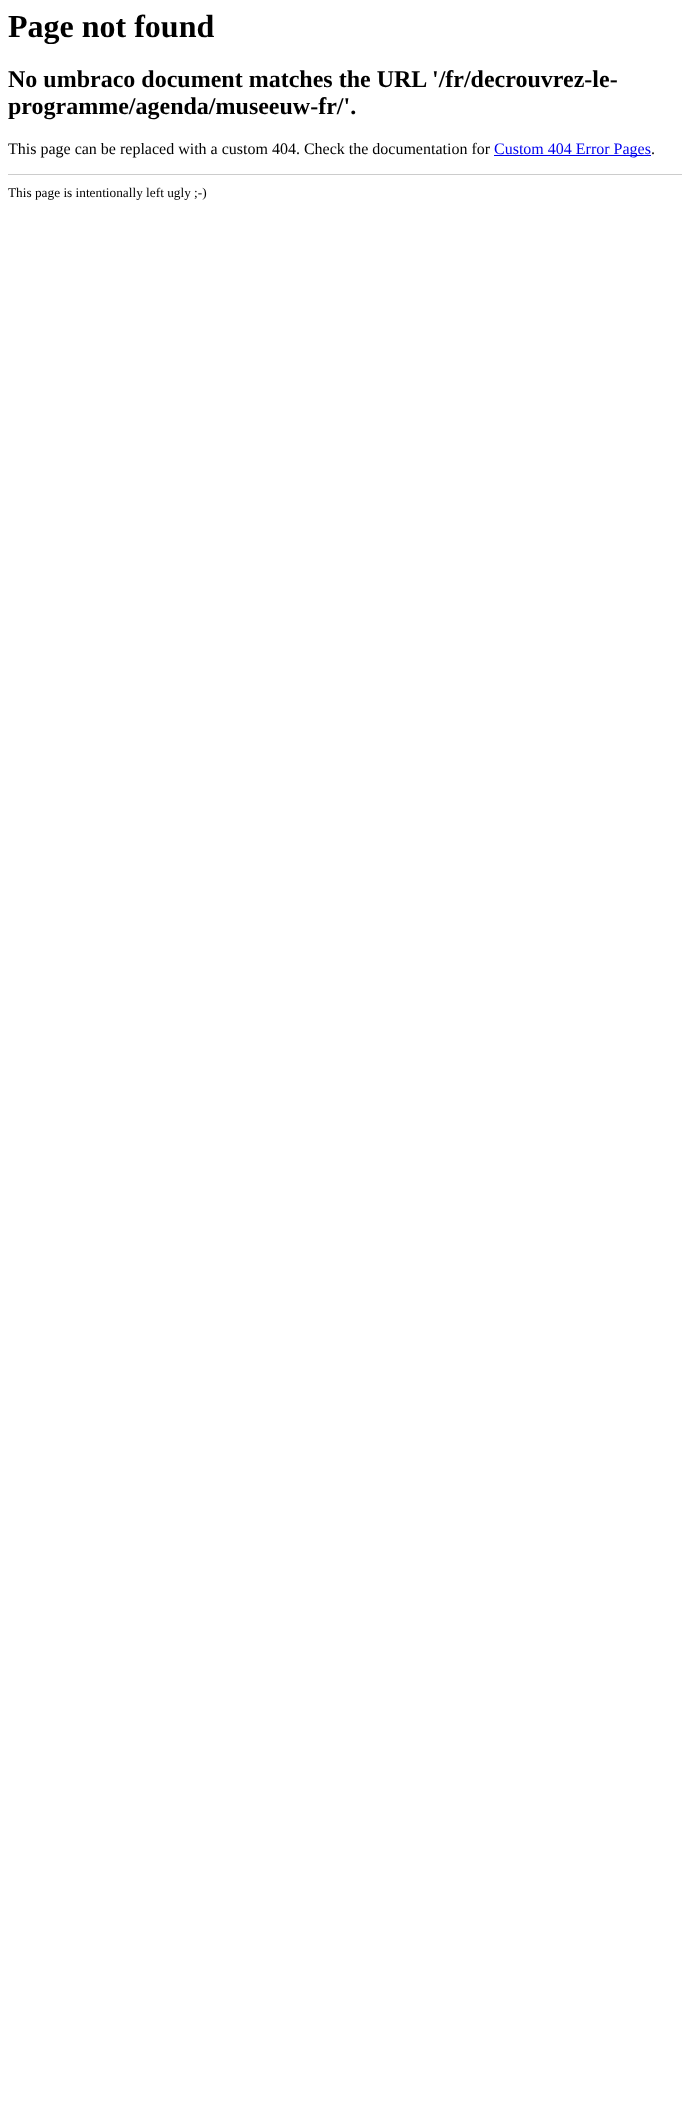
<svg xmlns="http://www.w3.org/2000/svg" xmlns:xlink="http://www.w3.org/1999/xlink" width="690" height="2118" viewBox="0 0 690 2118">
<style>
.cls-1{font:bold 32px Liberation Serif;fill:#000000}
.cls-2{font:bold 24px Liberation Serif;fill:#000000}
.cls-3{font:16px Liberation Serif;fill:#000000}
.cls-4{font:16px Liberation Serif;fill:#0000ee}
.cls-5{font:13.3px Liberation Serif;fill:#000000}
</style>
<rect width="100%" height="100%" fill="#ffffff"/>
<rect fill="#0000ee" x="494" y="155" width="157" height="1"/>
<rect fill="#cccccc" x="8" y="174" width="674" height="1"/>
<text class="cls-1" x="8" y="37">Page not found</text>
<text class="cls-2"><tspan x="8" y="87">No umbraco document matches the URL '/fr/decrouvrez-le-</tspan><tspan x="8" y="114">programme/agenda/museeuw-fr/'.</tspan></text>
<text class="cls-3" x="8" y="154">This page can be replaced with a custom 404. Check the documentation for</text>
<text class="cls-4" x="494" y="154">Custom 404 Error Pages</text>
<text class="cls-3" x="651" y="154">.</text>
<text class="cls-5" x="8" y="197">This page is intentionally left ugly ;-)</text>
</svg>
